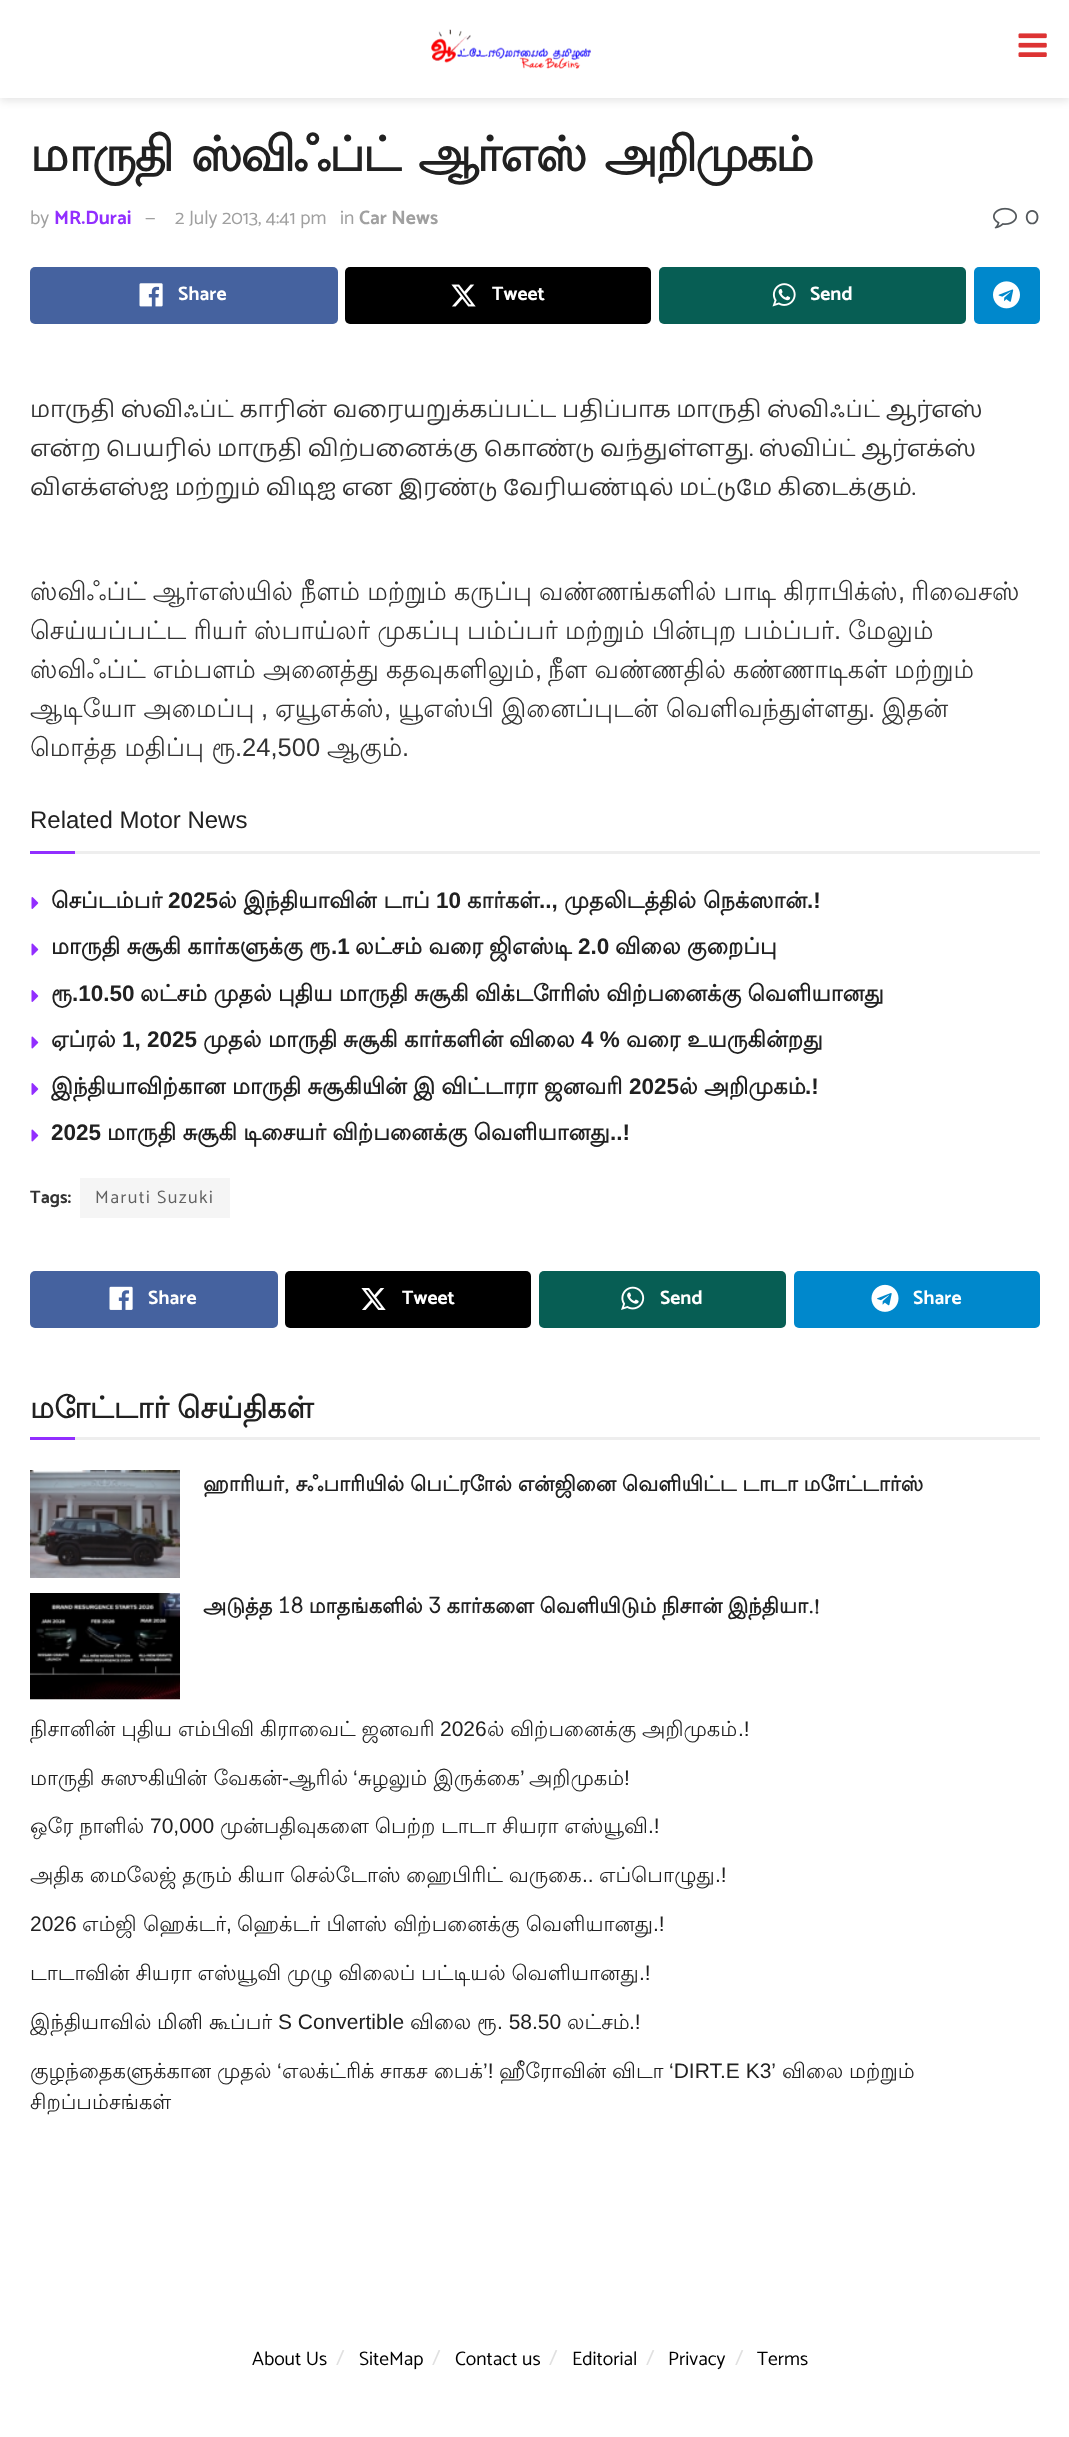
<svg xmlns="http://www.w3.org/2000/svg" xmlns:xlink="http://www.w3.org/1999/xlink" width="1069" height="2437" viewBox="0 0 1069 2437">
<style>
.cls-1{font:bold 48px Lohit Tamil;letter-spacing:-1.9px;fill:#212121}
.cls-2{font:19.5px Catamaran;fill:#a0a0a0}
.cls-3{font:bold 19.5px Catamaran;fill:#922eff}
.cls-4{font:bold 19.5px Catamaran;fill:#a0a0a0}
.cls-5{font:24px Catamaran;fill:#53585c}
.cls-6{font:bold 19.5px Catamaran;fill:#ffffff}
.cls-7{font:24px Catamaran;fill:#333333}
.cls-8{font:25.5px Lohit Tamil;fill:#333333}
.cls-9{font:25.5px Liberation Sans;fill:#333333}
.cls-10{font:24px Liberation Sans;fill:#212121}
.cls-11{font:bold 22.5px Lohit Tamil;fill:#212121}
.cls-12{font:bold 22.5px Liberation Sans;fill:#212121}
.cls-13{font:bold 18px Catamaran;fill:#333333}
.cls-14{font:18px Catamaran;letter-spacing:1.5px;fill:#616161}
.cls-15{font:bold 30px Lohit Tamil;fill:#212121}
.cls-16{font:bold 21px Lohit Tamil;fill:#212121}
.cls-17{font:21px Lohit Tamil;fill:#212121}
.cls-18{font:21px Liberation Sans;fill:#212121}
.cls-19{font:19.5px Catamaran;fill:#000000}
.cls-20{font:21px Catamaran;fill:#e0e0e0}
</style>
<rect width="100%" height="100%" fill="#ffffff"/>
<rect fill="#000000" fill-opacity="0.1" filter="blur(4.5px)" x="0" y="3" width="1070" height="98"/>
<rect fill="#ffffff" x="0" y="0" width="1069" height="98"/>
<image xlink:href="image0.png" x="431" y="29" width="160" height="40"/>
<image xlink:href="image1.png" x="1018" y="33" width="29" height="24"/>
<image xlink:href="image2.png" x="993" y="207" width="24" height="22"/>
<rect fill="#45629f" x="30" y="267" width="308" height="57" rx="5"/>
<image xlink:href="image3.png" x="139" y="283" width="24" height="24"/>
<rect fill="#000000" x="345" y="267" width="306" height="57" rx="5"/>
<image xlink:href="image4.png" x="451" y="284" width="25" height="23"/>
<rect fill="#075e54" x="659" y="267" width="307" height="57" rx="5"/>
<image xlink:href="image5.png" x="772" y="283" width="24" height="24"/>
<rect fill="#0088cc" x="974" y="267" width="66" height="57" rx="5"/>
<image xlink:href="image6.png" x="993" y="281" width="27" height="28"/>
<rect fill="#eeeeee" x="75" y="851" width="965" height="3"/>
<rect fill="#922eff" x="30" y="851" width="45" height="3"/>
<image xlink:href="image7.png" x="31" y="897" width="8" height="12"/>
<image xlink:href="image8.png" x="31" y="943" width="8" height="13"/>
<image xlink:href="image7.png" x="31" y="990" width="8" height="12"/>
<image xlink:href="image8.png" x="31" y="1036" width="8" height="13"/>
<image xlink:href="image7.png" x="31" y="1083" width="8" height="12"/>
<image xlink:href="image8.png" x="31" y="1129" width="8" height="13"/>
<rect fill="#f5f5f5" x="80" y="1178" width="150" height="40"/>
<rect fill="#45629f" x="30" y="1271" width="248" height="57" rx="5"/>
<image xlink:href="image9.png" x="109" y="1286" width="24" height="24"/>
<rect fill="#000000" x="285" y="1271" width="246" height="57" rx="5"/>
<image xlink:href="image10.png" x="361" y="1288" width="25" height="22"/>
<rect fill="#075e54" x="539" y="1271" width="247" height="57" rx="5"/>
<image xlink:href="image11.png" x="621" y="1286" width="24" height="24"/>
<rect fill="#0088cc" x="794" y="1271" width="246" height="57" rx="5"/>
<image xlink:href="image12.png" x="871" y="1284" width="28" height="28"/>
<rect fill="#eeeeee" x="75" y="1437" width="965" height="3"/>
<rect fill="#922eff" x="30" y="1437" width="45" height="3"/>
<image xlink:href="image13.png" x="30" y="1470" width="150" height="108"/>
<rect fill="#f7f7f7" x="30" y="1699" width="150" height="1"/>
<image xlink:href="image14.png" x="30" y="1593" width="150" height="107"/>
<text class="cls-1" x="30" y="171" word-spacing="6.5">மாருதி ஸ்விஃப்ட் ஆர்எஸ் அறிமுகம்</text>
<text class="cls-2" x="30" y="224">by</text>
<text class="cls-3" x="54" y="224">MR.Durai</text>
<text class="cls-2" x="145" y="224">—</text>
<text class="cls-2" x="175" y="224">2 July 2013, 4:41 pm</text>
<text class="cls-2" x="340" y="224">in</text>
<text class="cls-4" x="359" y="224">Car News</text>
<text class="cls-5" x="1025" y="224">0</text>
<text class="cls-6" x="178" y="300">Share</text>
<text class="cls-6" x="492" y="300">Tweet</text>
<text class="cls-6" x="810" y="300">Send</text>
<text class="cls-7"><tspan x="30" y="417">மாருதி ஸ்விஃப்ட் காரின் வரையறுக்கப்பட்ட பதிப்பாக மாருதி ஸ்விஃப்ட் ஆர்எஸ்</tspan><tspan x="30" y="456">என்ற பெயரில் மாருதி விற்பனைக்கு கொண்டு வந்துள்ளது. ஸ்விப்ட் ஆர்எக்ஸ்</tspan><tspan x="30" y="495">விஎக்எஸ்ஐ மற்றும் விடிஐ என இரண்டு வேரியண்டில் மட்டுமே கிடைக்கும்.</tspan></text>
<text class="cls-8" x="30" y="600" word-spacing="-0.5">ஸ்விஃப்ட் ஆர்எஸ்யில் நீளம் மற்றும் கருப்பு வண்ணங்களில் பாடி கிராபிக்ஸ்</text>
<text class="cls-9" x="898" y="600">,</text>
<text class="cls-8" x="911" y="600">ரிவைசஸ்</text>
<text class="cls-8" x="30" y="639" word-spacing="-0.5">செய்யப்பட்ட ரியர் ஸ்பாய்லர் முகப்பு பம்ப்பர் மற்றும் பின்புற பம்ப்பர்</text>
<text class="cls-9" x="834" y="639">.</text>
<text class="cls-8" x="848" y="639">மேலும்</text>
<text class="cls-8" x="30" y="678" word-spacing="-0.5">ஸ்விஃப்ட் எம்பளம் அனைத்து கதவுகளிலும்</text>
<text class="cls-9" x="535" y="678">,</text>
<text class="cls-8" x="548" y="678" word-spacing="-0.5">நீள வண்ணதில் கண்ணாடிகள் மற்றும்</text>
<text class="cls-8" x="30" y="717">ஆடியோ அமைப்பு</text>
<text class="cls-9" x="261" y="717">,</text>
<text class="cls-8" x="275" y="717">ஏயூஎக்ஸ்</text>
<text class="cls-9" x="384" y="717">,</text>
<text class="cls-8" x="398" y="717">யூஎஸ்பி இனைப்புடன் வெளிவந்துள்ளது</text>
<text class="cls-9" x="868" y="717">.</text>
<text class="cls-8" x="882" y="717">இதன்</text>
<text class="cls-8" x="30" y="756">மொத்த மதிப்பு ரூ</text>
<text class="cls-9" x="235" y="756">.24,500</text>
<text class="cls-8" x="327" y="756">ஆகும்</text>
<text class="cls-9" x="402" y="756">.</text>
<text class="cls-10" x="30" y="828">Related Motor News</text>
<text class="cls-11" x="51" y="908">செப்டம்பர்</text>
<text class="cls-12" x="168" y="908">2025</text>
<text class="cls-11" x="218" y="908">ல் இந்தியாவின் டாப்</text>
<text class="cls-12" x="436" y="908">10</text>
<text class="cls-11" x="467" y="908">கார்கள்</text>
<text class="cls-12" x="539" y="908">..,</text>
<text class="cls-11" x="564" y="908">முதலிடத்தில் நெக்ஸான்</text>
<text class="cls-12" x="807" y="908">.!</text>
<text class="cls-11" x="51" y="954" word-spacing="-0.5">மாருதி சுசூகி கார்களுக்கு ரூ</text>
<text class="cls-12" x="331" y="954">.1</text>
<text class="cls-11" x="355" y="954" word-spacing="-0.5">லட்சம் வரை ஜிஎஸ்டி</text>
<text class="cls-12" x="578" y="954">2.0</text>
<text class="cls-11" x="615" y="954" word-spacing="-0.5">விலை குறைப்பு</text>
<text class="cls-11" x="51" y="1001">ரூ</text>
<text class="cls-12" x="72" y="1001">.10.50</text>
<text class="cls-11" x="140" y="1001" word-spacing="-0.5">லட்சம் முதல் புதிய மாருதி சுசூகி விக்டோரிஸ் விற்பனைக்கு வெளியானது</text>
<text class="cls-11" x="51" y="1047">ஏப்ரல்</text>
<text class="cls-12" x="122" y="1047">1, 2025</text>
<text class="cls-11" x="203" y="1047">முதல்</text>
<text class="cls-11" x="268" y="1047">மாருதி</text>
<text class="cls-11" x="343" y="1047">சுசூகி</text>
<text class="cls-11" x="404" y="1047">கார்களின்</text>
<text class="cls-11" x="509" y="1047">விலை</text>
<text class="cls-12" x="581" y="1047">4 %</text>
<text class="cls-11" x="626" y="1047">வரை</text>
<text class="cls-11" x="687" y="1047">உயருகின்றது</text>
<text class="cls-11" x="51" y="1094" word-spacing="-0.5">இந்தியாவிற்கான மாருதி சுசூகியின் இ விட்டாரா ஜனவரி</text>
<text class="cls-12" x="629" y="1094">2025</text>
<text class="cls-11" x="679" y="1094" word-spacing="-0.5">ல் அறிமுகம்</text>
<text class="cls-12" x="805" y="1094">.!</text>
<text class="cls-12" x="51" y="1140">2025</text>
<text class="cls-11" x="107" y="1140" word-spacing="-0.5">மாருதி சுசூகி டிசையர் விற்பனைக்கு வெளியானது</text>
<text class="cls-12" x="610" y="1140">..!</text>
<text class="cls-13" x="30" y="1203">Tags:</text>
<text class="cls-14" x="95" y="1203">Maruti Suzuki</text>
<text class="cls-6" x="148" y="1304">Share</text>
<text class="cls-6" x="402" y="1304">Tweet</text>
<text class="cls-6" x="660" y="1304">Send</text>
<text class="cls-6" x="913" y="1304">Share</text>
<text class="cls-15" x="30" y="1418" word-spacing="-1">மோட்டார் செய்திகள்</text>
<text class="cls-16" x="203" y="1491" word-spacing="-0.5">ஹாரியர், சஃபாரியில் பெட்ரோல் என்ஜினை வெளியிட்ட டாடா மோட்டார்ஸ்</text>
<text class="cls-16" x="203" y="1613" word-spacing="-0.75">அடுத்த 18 மாதங்களில் 3 கார்களை வெளியிடும் நிசான் இந்தியா.!</text>
<text class="cls-17" x="30" y="1736" word-spacing="-0.5">நிசானின் புதிய எம்பிவி கிராவைட் ஜனவரி</text>
<text class="cls-18" x="440" y="1736">2026</text>
<text class="cls-17" x="487" y="1736" word-spacing="-0.5">ல் விற்பனைக்கு அறிமுகம்</text>
<text class="cls-18" x="738" y="1736">.!</text>
<text class="cls-17" x="30" y="1785">மாருதி சுஸுகியின் வேகன்</text>
<text class="cls-18" x="282" y="1785">-</text>
<text class="cls-17" x="289" y="1785">ஆரில்</text>
<text class="cls-18" x="353" y="1785">‘</text>
<text class="cls-17" x="358" y="1785">சுழலும் இருக்கை</text>
<text class="cls-18" x="520" y="1785">’</text>
<text class="cls-17" x="529" y="1785">அறிமுகம்</text>
<text class="cls-18" x="624" y="1785">!</text>
<text class="cls-17" x="30" y="1833" word-spacing="-0.5">ஒரே நாளில்</text>
<text class="cls-18" x="150" y="1833">70,000</text>
<text class="cls-17" x="220" y="1833" word-spacing="-0.5">முன்பதிவுகளை பெற்ற டாடா சியரா எஸ்யூவி</text>
<text class="cls-18" x="648" y="1833">.!</text>
<text class="cls-17" x="30" y="1882" word-spacing="-0.5">அதிக மைலேஜ் தரும் கியா செல்டோஸ் ஹைபிரிட் வருகை</text>
<text class="cls-18" x="582" y="1882">..</text>
<text class="cls-17" x="599" y="1882">எப்பொழுது</text>
<text class="cls-18" x="715" y="1882">.!</text>
<text class="cls-18" x="30" y="1931">2026</text>
<text class="cls-17" x="82" y="1931">எம்ஜி ஹெக்டர்</text>
<text class="cls-18" x="226" y="1931">,</text>
<text class="cls-17" x="237" y="1931">ஹெக்டர் பிளஸ் விற்பனைக்கு வெளியானது</text>
<text class="cls-18" x="653" y="1931">.!</text>
<text class="cls-17" x="30" y="1980" word-spacing="-0.5">டாடாவின் சியரா எஸ்யூவி முழு விலைப் பட்டியல் வெளியானது</text>
<text class="cls-18" x="639" y="1980">.!</text>
<text class="cls-17" x="30" y="2029">இந்தியாவில்</text>
<text class="cls-17" x="157" y="2029">மினி</text>
<text class="cls-17" x="209" y="2029">கூப்பர்</text>
<text class="cls-18" x="278" y="2029">S Convertible</text>
<text class="cls-17" x="410" y="2029">விலை</text>
<text class="cls-17" x="477" y="2029">ரூ</text>
<text class="cls-18" x="497" y="2029">. 58.50</text>
<text class="cls-17" x="567" y="2029">லட்சம்</text>
<text class="cls-18" x="629" y="2029">.!</text>
<text class="cls-17" x="30" y="2078">குழந்தைகளுக்கான</text>
<text class="cls-17" x="217" y="2078">முதல்</text>
<text class="cls-18" x="277" y="2078">‘</text>
<text class="cls-17" x="282" y="2078">எலக்ட்ரிக்</text>
<text class="cls-17" x="380" y="2078">சாகச</text>
<text class="cls-17" x="434" y="2078">பைக்</text>
<text class="cls-18" x="483" y="2078">’!</text>
<text class="cls-17" x="499" y="2078">ஹீரோவின்</text>
<text class="cls-17" x="612" y="2078">விடா</text>
<text class="cls-18" x="669" y="2078">‘DIRT.E K3’</text>
<text class="cls-17" x="782" y="2078">விலை</text>
<text class="cls-17" x="849" y="2078">மற்றும்</text>
<text class="cls-17" x="30" y="2109">சிறப்பம்சங்கள்</text>
<text class="cls-19" x="252" y="2365">About Us</text>
<text class="cls-20" x="336" y="2365">/</text>
<text class="cls-19" x="359" y="2365">SiteMap</text>
<text class="cls-20" x="432" y="2365">/</text>
<text class="cls-19" x="455" y="2365">Contact us</text>
<text class="cls-20" x="549" y="2365">/</text>
<text class="cls-19" x="572" y="2365">Editorial</text>
<text class="cls-20" x="646" y="2365">/</text>
<text class="cls-19" x="668" y="2365">Privacy</text>
<text class="cls-20" x="735" y="2365">/</text>
<text class="cls-19" x="757" y="2365">Terms</text>
</svg>
